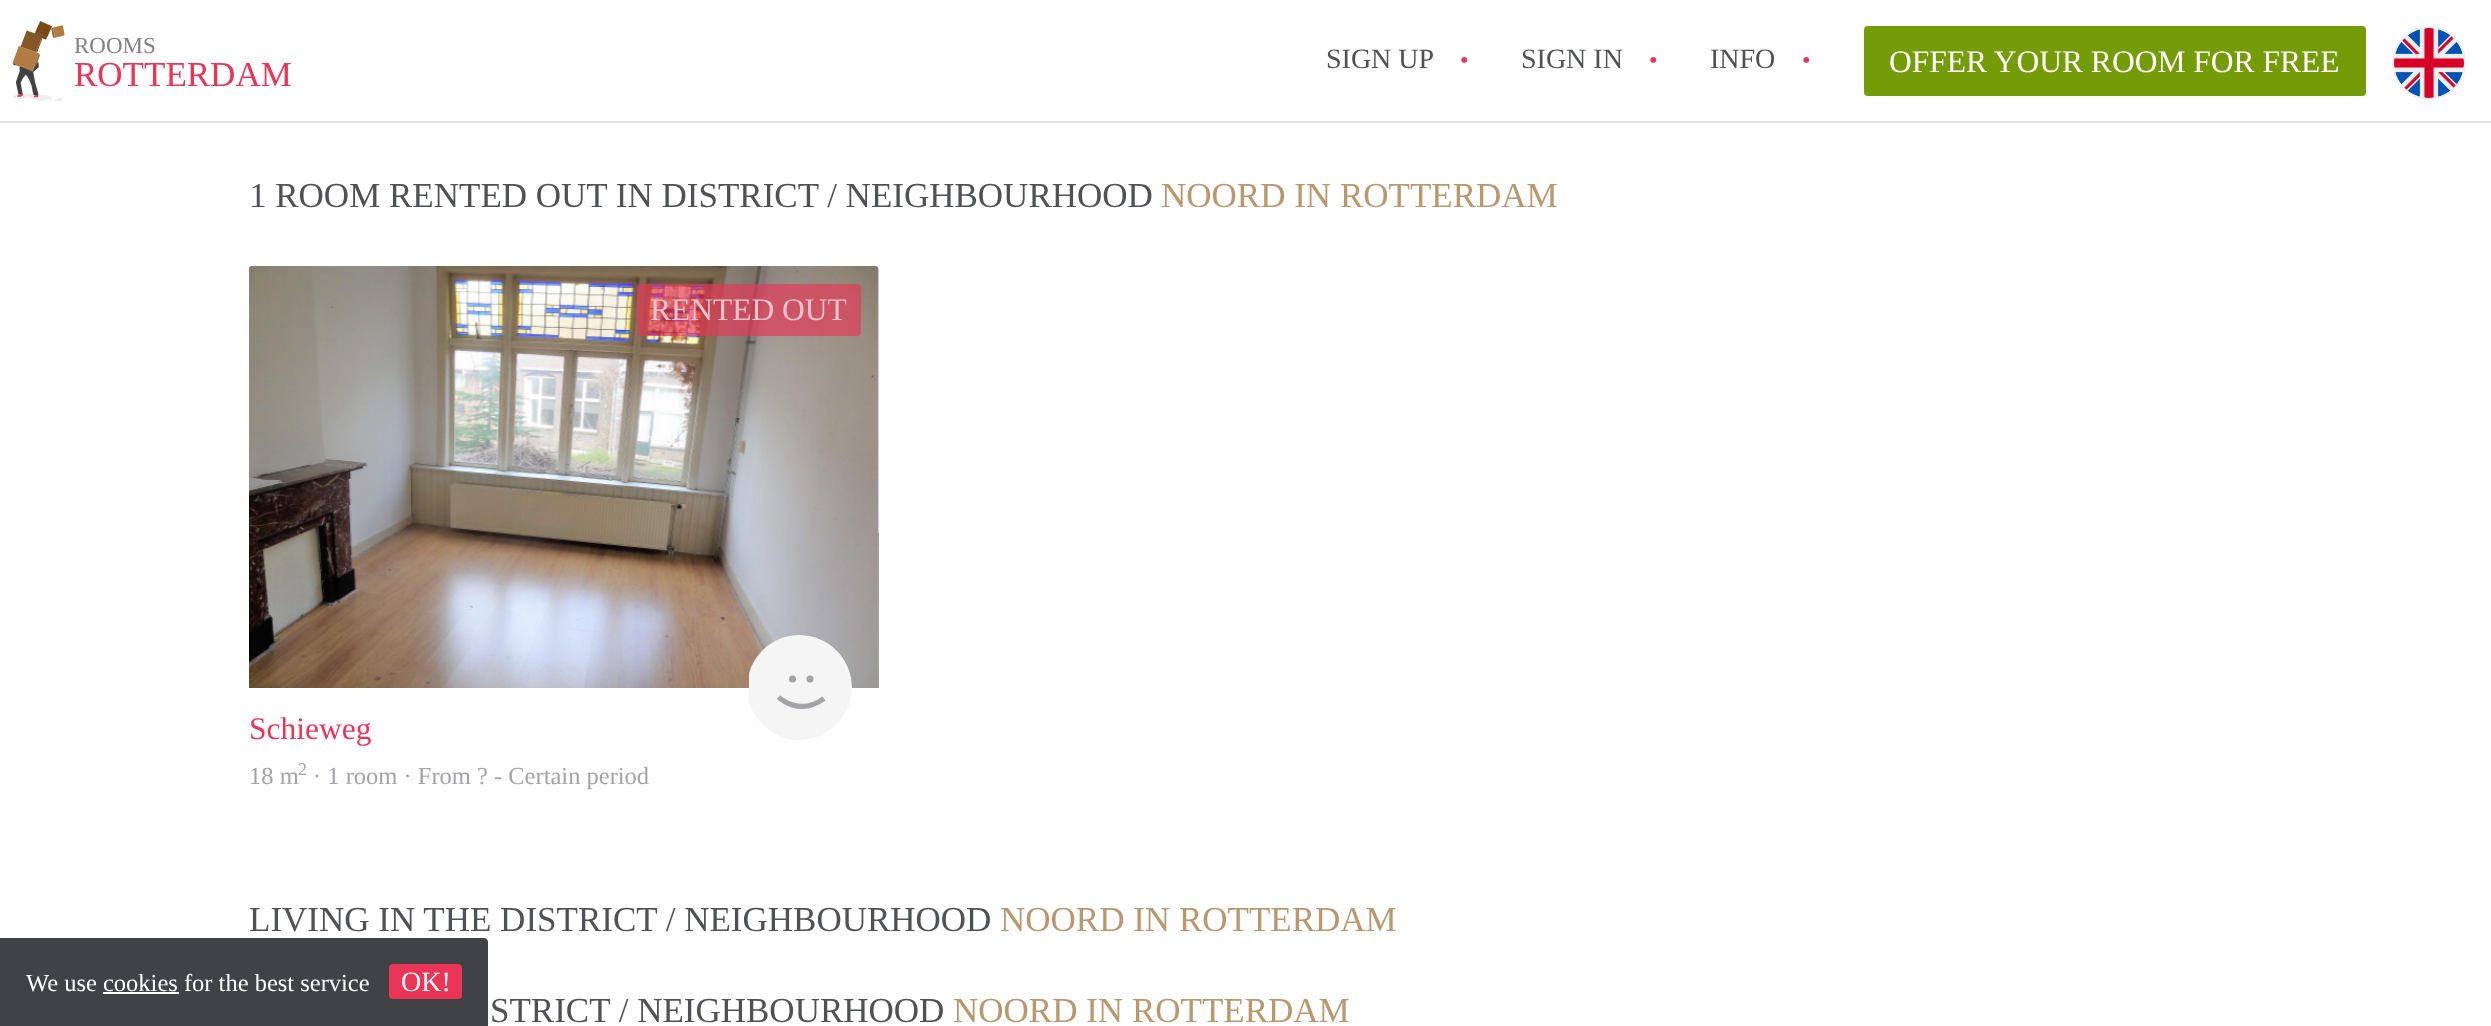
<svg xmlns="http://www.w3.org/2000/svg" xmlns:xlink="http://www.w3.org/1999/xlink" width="2491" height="1026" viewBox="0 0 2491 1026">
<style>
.cls-1{font:23px Liberation Serif;fill:#808285}
.cls-2{font:35px Liberation Serif;fill:#ea3556}
.cls-3{font:28px Liberation Serif;fill:#4f5154}
.cls-4{font:24.5px Liberation Serif;fill:#ea3556}
.cls-5{font:31.5px Liberation Serif;fill:#ffffff}
.cls-6{font:24.5px Liberation Serif;fill:#ffffff}
.cls-7{font:28px Liberation Serif;fill:#ffffff}
.cls-8{font:35px Liberation Serif;fill:#4f5154}
.cls-9{font:35px Liberation Serif;fill:#bb976e}
.cls-10{font:31.5px Liberation Serif;fill:#edc2c8}
.cls-11{font:31.5px Liberation Serif;fill:#ea3556}
.cls-12{font:24.5px Liberation Serif;fill:#a2a3a6}
.cls-13{font:18px Liberation Serif;fill:#a2a3a6}
</style>
<defs>
<clipPath id="clip1"><rect x="747" y="635" width="105" height="105" rx="52.5"/></clipPath>
</defs>
<rect width="100%" height="100%" fill="#ffffff"/>
<rect fill="#e3e3e3" x="0" y="121" width="2491" height="2"/>
<image xlink:href="image0.png" x="12" y="21" width="53" height="80"/>
<rect fill="#739c07" x="1864" y="26" width="502" height="70" rx="4"/>
<circle fill="none" stroke="#f0f0f0" stroke-width="2" cx="2429" cy="63" r="36"/>
<image xlink:href="image1.png" x="2394" y="28" width="70" height="70"/>
<path fill="#2b2d31" fill-opacity="0.9" d="M0 938H484C486 938 488 940 488 942V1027H0Z"/>
<rect fill="#ea3556" x="389" y="964" width="73" height="35" rx="4"/>
<rect fill="#ffffff" x="103" y="992" width="76" height="2"/>
<image xlink:href="image2.png" x="249" y="266" width="630" height="422"/>
<rect fill="#ea3556" fill-opacity="0.65" x="637" y="284" width="224" height="52" rx="4"/>
<g clip-path="url(#clip1)">
<path fill="#f5f5f5" d="M749 635H799.5C828.5 635 852 658.5 852 687.5C852 716.5 828.5 740 799.5 740H749Z"/>
</g>
<path fill="none" stroke="#a2a3a6" stroke-width="5.2" d="M778.5 697C778.5 697 799 717 824 698.5"/>
<circle fill="#a2a3a6" cx="792.5" cy="679" r="3.5"/>
<circle fill="#a2a3a6" cx="810" cy="679" r="3.5"/>
<text class="cls-1" x="74" y="53">ROOMS</text>
<text class="cls-2" x="74" y="86">ROTTERDAM</text>
<text class="cls-3" x="1326" y="68">SIGN UP</text>
<text class="cls-4" x="1460" y="68">•</text>
<text class="cls-3" x="1521" y="68">SIGN IN</text>
<text class="cls-4" x="1649" y="68">•</text>
<text class="cls-3" x="1710" y="68">INFO</text>
<text class="cls-4" x="1802" y="68">•</text>
<text class="cls-5" x="1889" y="72">OFFER YOUR ROOM FOR FREE</text>
<text class="cls-6" x="26" y="991">We use cookies for the best service</text>
<text class="cls-7" x="401" y="991">OK!</text>
<text class="cls-8" x="249" y="207">1 ROOM RENTED OUT IN DISTRICT / NEIGHBOURHOOD</text>
<text class="cls-9" x="1161" y="207">NOORD IN ROTTERDAM</text>
<text class="cls-10" x="650" y="320">RENTED OUT</text>
<text class="cls-11" x="249" y="739">Schieweg</text>
<text class="cls-12" x="249" y="784">18 m</text>
<text class="cls-13" x="298" y="775">2</text>
<text class="cls-12" x="313" y="784">· 1 room · From ? - Certain period</text>
<text class="cls-8" x="249" y="931">LIVING IN THE DISTRICT / NEIGHBOURHOOD</text>
<text class="cls-9" x="1000" y="931">NOORD IN ROTTERDAM</text>
<text class="cls-8" x="490" y="1022">STRICT / NEIGHBOURHOOD</text>
<text class="cls-9" x="953" y="1022">NOORD IN ROTTERDAM</text>
</svg>
